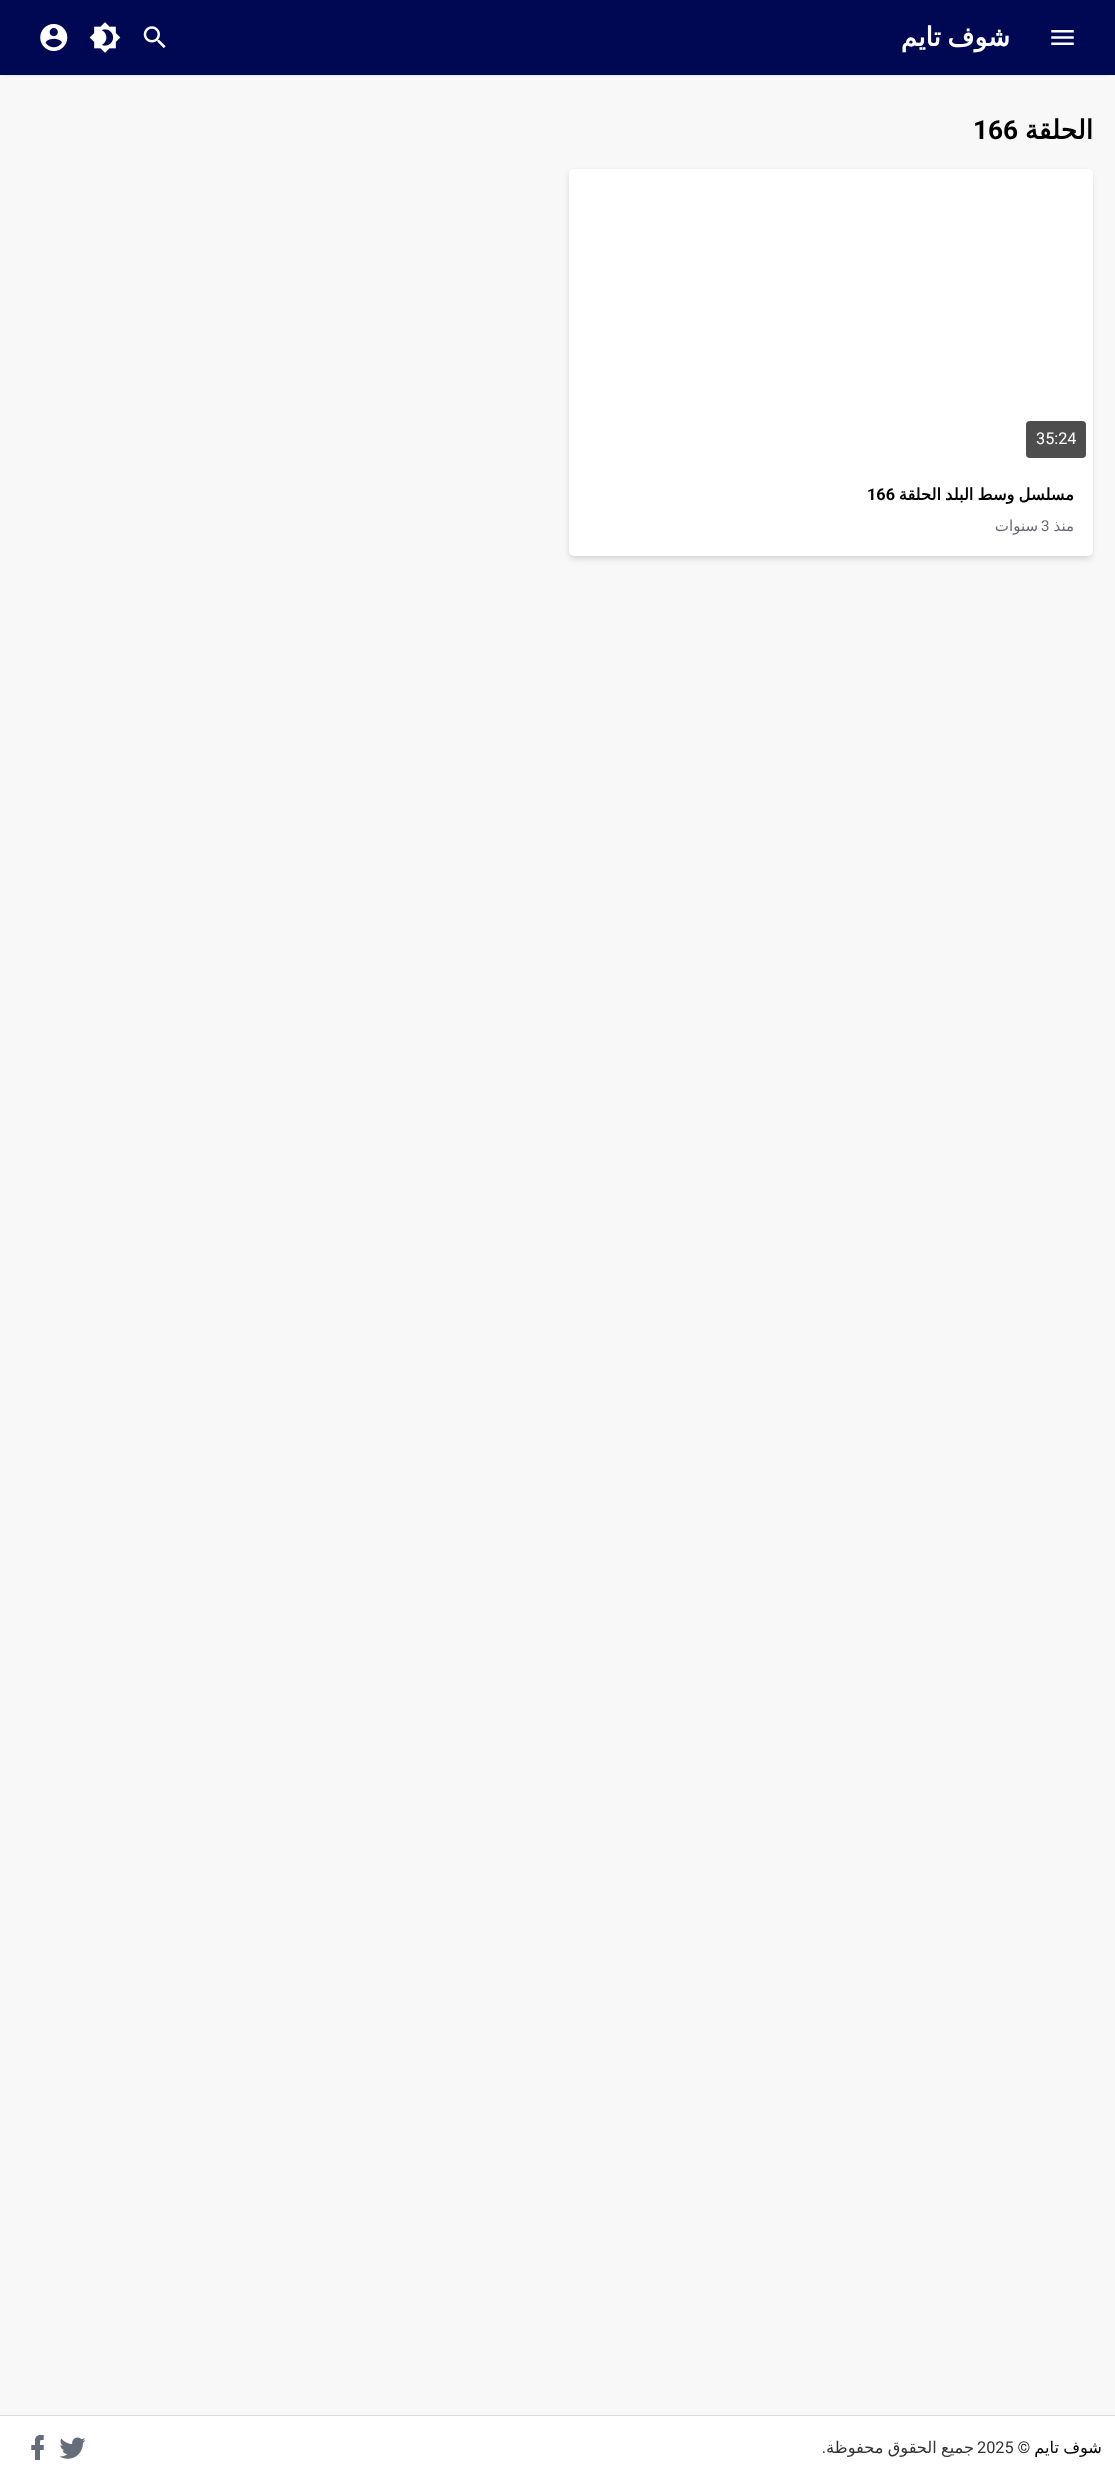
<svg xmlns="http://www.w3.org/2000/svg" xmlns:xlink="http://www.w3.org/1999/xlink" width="1115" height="2479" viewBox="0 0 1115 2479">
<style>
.cls-1{font:bold 26.25px DejaVu Sans;direction:rtl;fill:#ffffff}
.cls-2{font:bold 26.25px DejaVu Sans;direction:rtl;fill:#000000}
.cls-3{font:bold 26.25px Roboto;fill:#000000}
.cls-4{font:16.25px Roboto;fill:#ffffff}
.cls-5{font:bold 16.25px DejaVu Sans;direction:rtl;fill:#000000}
.cls-6{font:bold 16.25px Roboto;fill:#000000}
.cls-7{font:15px DejaVu Sans;direction:rtl;fill:#6e6779}
.cls-8{font:15px Roboto;fill:#6e6779}
.cls-9{font:16.25px DejaVu Sans;direction:rtl;fill:#000000}
.cls-10{font:16.25px Roboto;fill:#333333}
.cls-11{font:16.25px DejaVu Sans;direction:rtl;fill:#333333}
.cls-12{font:16.25px Roboto;direction:rtl;fill:#333333}
</style>
<rect width="100%" height="100%" fill="#f8f8f8"/>
<rect fill="#eeeeee" x="0" y="75" width="1115" height="1"/>
<rect fill="#999999" filter="blur(3px)" x="6" y="9" width="1103" height="62"/>
<rect fill="#000854" x="0" y="0" width="1115" height="75"/>
<image xlink:href="image0.png" x="1051" y="30" width="23" height="15"/>
<image xlink:href="image1.png" x="143" y="26" width="23" height="22"/>
<image xlink:href="image2.png" x="89" y="22" width="32" height="31"/>
<image xlink:href="image3.png" x="40" y="24" width="28" height="27"/>
<rect fill="#cccccc" filter="blur(3px)" x="570" y="173" width="521" height="385" rx="4"/>
<rect fill="#ffffff" x="569" y="169" width="524" height="387" rx="5"/>
<rect fill="#4d4d4d" x="1026" y="421" width="60" height="37" rx="4"/>
<rect fill="#ffffff" x="0" y="2416" width="1115" height="63"/>
<rect fill="#dddddd" x="0" y="2415" width="1115" height="1"/>
<image xlink:href="image4.png" x="59" y="2437" width="27" height="22"/>
<image xlink:href="image5.png" x="31" y="2435" width="13" height="25"/>
<text class="cls-1" x="1010" y="46" word-spacing="-2">شوف تايم</text>
<text class="cls-2" x="1093" y="139">الحلقة</text>
<text class="cls-3" x="973" y="139">166</text>
<text class="cls-4" x="1036" y="444">35:24</text>
<text class="cls-5" x="1074" y="500" word-spacing="-1">مسلسل وسط البلد الحلقة</text>
<text class="cls-6" x="867" y="500">166</text>
<text class="cls-7" x="1074" y="531">منذ</text>
<text class="cls-8" x="1041" y="531">3</text>
<text class="cls-7" x="1038" y="531">سنوات</text>
<text class="cls-9" x="1102" y="2453" word-spacing="-1">شوف تايم</text>
<text class="cls-10" x="977" y="2453">2025 ©</text>
<text class="cls-11" x="974" y="2453" word-spacing="-1">جميع الحقوق محفوظة</text>
<text class="cls-12" x="826" y="2453">.</text>
</svg>
